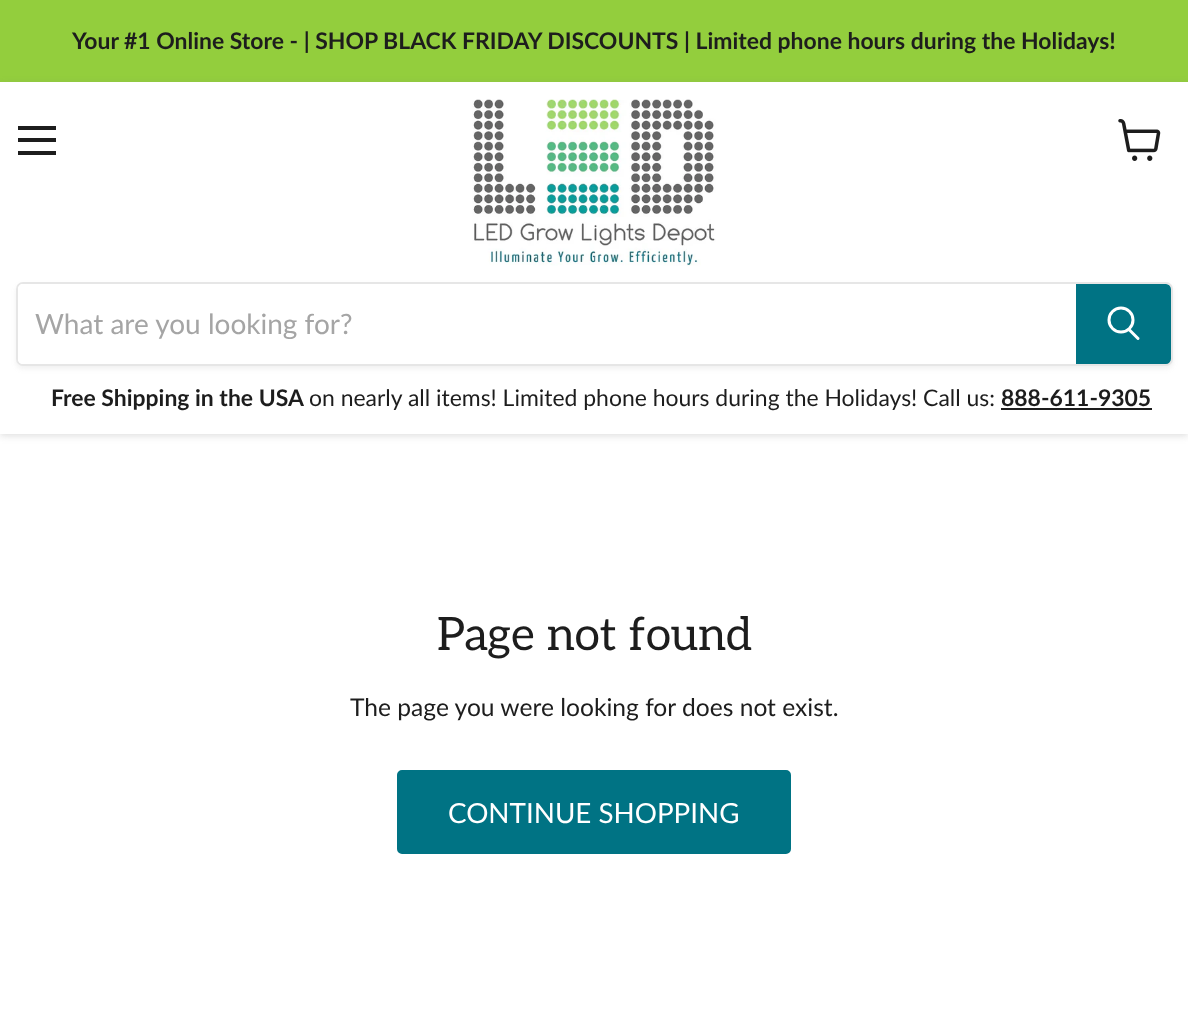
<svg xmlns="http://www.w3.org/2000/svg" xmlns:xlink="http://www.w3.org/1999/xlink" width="1188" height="1024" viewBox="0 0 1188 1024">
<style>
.cls-1{font:bold 22.95px Lato;fill:#1d1d1d}
.cls-2{font:28px Lato;fill:#a5a5a5}
.cls-3{font:22.95px Lato;fill:#1d1d1d}
.cls-4{font:46px Aleo;fill:#1d1d1d}
.cls-5{font:24.6px Lato;fill:#1d1d1d}
.cls-6{font:27.75px Lato;fill:#ffffff}
</style>
<defs>
<clipPath id="clip1"><path d="M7 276H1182V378H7ZM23 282H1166C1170 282 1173 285 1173 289V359C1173 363 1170 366 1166 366H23C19 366 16 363 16 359V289C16 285 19 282 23 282Z" clip-rule="evenodd"/></clipPath>
</defs>
<rect width="100%" height="100%" fill="#ffffff"/>
<rect fill="#93ce3d" x="0" y="0" width="1188" height="82"/>
<rect fill="#808080" fill-opacity="0.25" filter="blur(3.5px)" x="0" y="84" width="1188" height="352"/>
<rect fill="#ffffff" x="0" y="82" width="1188" height="352"/>
<rect fill="#1d1d1d" x="18" y="126" width="38" height="4"/>
<rect fill="#1d1d1d" x="18" y="138" width="38" height="4"/>
<rect fill="#1d1d1d" x="18" y="151" width="38" height="4"/>
<image xlink:href="image0.png" x="1118" y="119" width="43" height="42"/>
<image xlink:href="image1.png" x="472" y="99" width="244" height="167"/>
<g clip-path="url(#clip1)">
<rect fill="#808080" fill-opacity="0.11" filter="blur(2.5px)" x="16" y="285" width="1157" height="84" rx="7"/>
</g>
<rect fill="none" stroke="#808080" stroke-opacity="0.2" stroke-width="2" x="17" y="283" width="1155" height="82" rx="6"/>
<path fill="#ffffff" d="M23 284H1076V364H23C20 364 18 362 18 359V289C18 286 20 284 23 284Z"/>
<path fill="#007384" stroke="#007384" stroke-width="2" d="M1077 285H1166C1168 285 1170 287 1170 289V359C1170 361 1168 363 1166 363H1077Z"/>
<path fill="none" stroke="#ffffff" stroke-width="3" stroke-linecap="round" d="M1138 338.5L1129.5 330"/>
<circle fill="none" stroke="#ffffff" stroke-width="3" cx="1121" cy="320" r="12"/>
<rect fill="#1d1d1d" x="1001" y="408" width="151" height="2"/>
<rect fill="#007384" stroke="#007384" stroke-width="2" x="398" y="771" width="392" height="82" rx="4"/>
<text class="cls-1" x="72" y="49">Your #1 Online Store - | SHOP BLACK FRIDAY DISCOUNTS | Limited phone hours during the Holidays!</text>
<text class="cls-2" x="35" y="334">What are you looking for?</text>
<text class="cls-1" x="51" y="406">Free Shipping in the USA</text>
<text class="cls-3" x="309" y="406">on nearly all items! Limited phone hours during the Holidays! Call us:</text>
<text class="cls-1" x="1001" y="406">888-611-9305</text>
<text class="cls-4" x="437" y="650">Page not found</text>
<text class="cls-5" x="350" y="716">The page you were looking for does not exist.</text>
<text class="cls-6" x="448" y="823">CONTINUE SHOPPING</text>
</svg>
